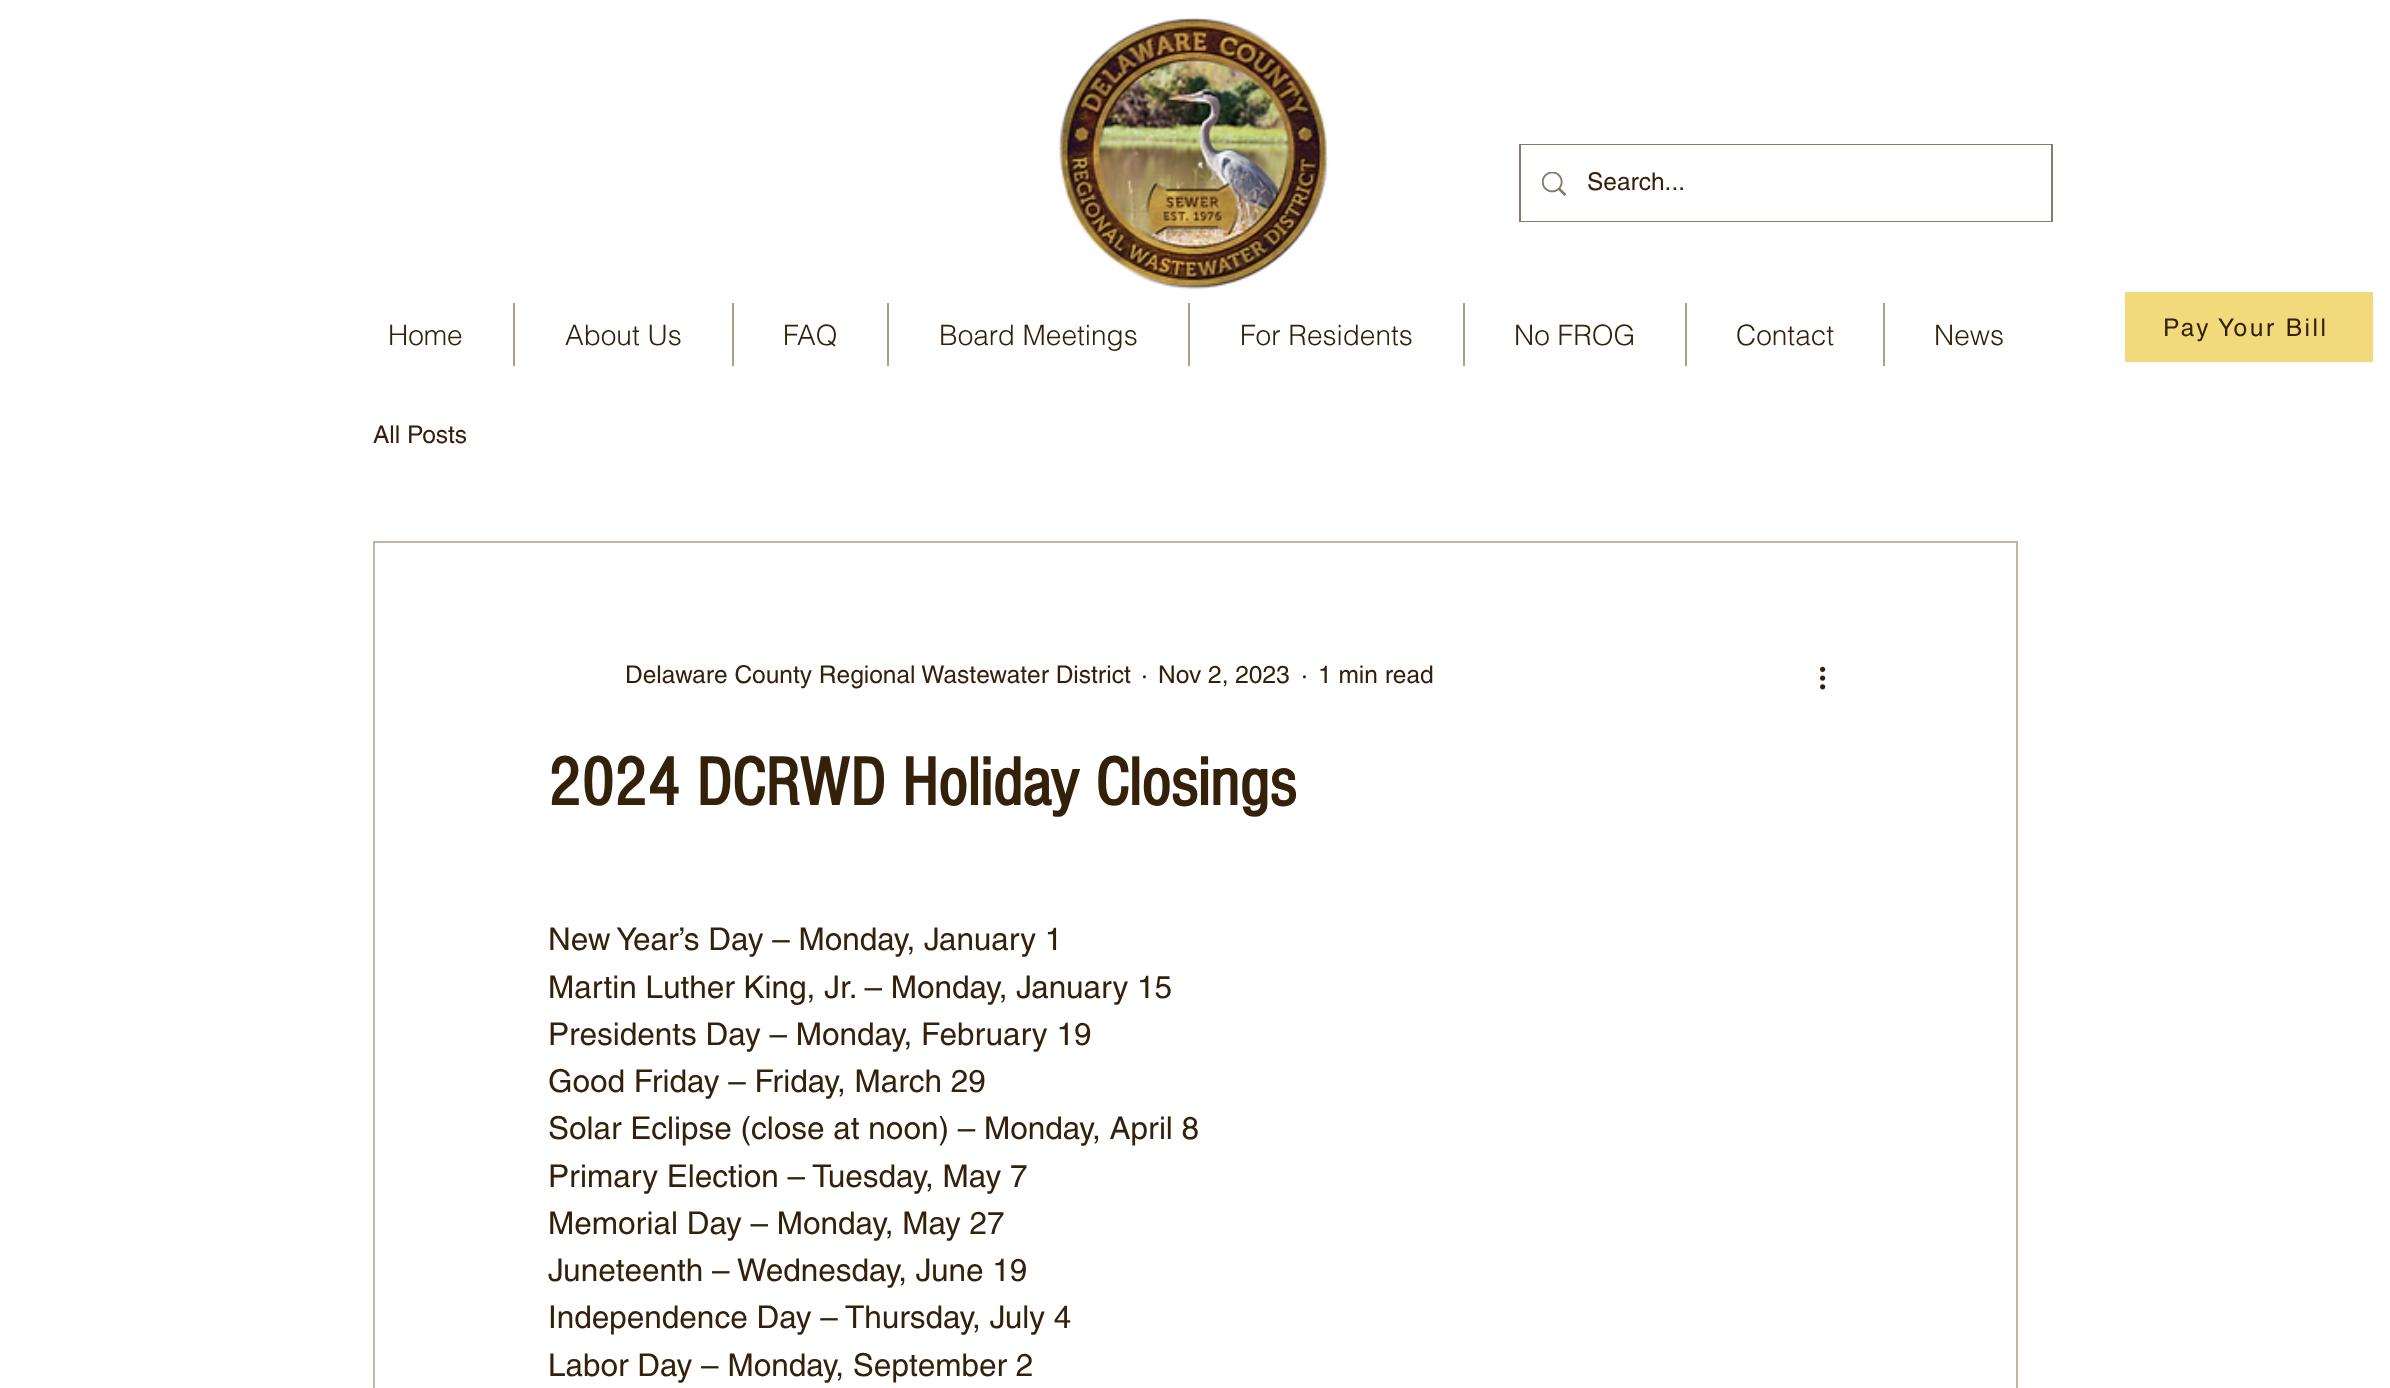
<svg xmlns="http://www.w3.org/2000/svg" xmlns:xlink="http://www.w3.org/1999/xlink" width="2390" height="1388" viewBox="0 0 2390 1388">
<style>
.cls-1{font:24.5px helvetica;fill:#342109}
.cls-2{font:300 28px helvetica;fill:#342109}
.cls-3{font:24.5px helvetica;letter-spacing:2.5px;fill:#342109}
.cls-4{font:bold 70px 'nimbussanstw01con';fill:#342109}
.cls-5{font:31.5px helvetica;fill:#342109}
</style>
<rect width="100%" height="100%" fill="#ffffff"/>
<image xlink:href="image0.png" x="1058" y="17" width="271" height="273"/>
<rect fill="none" stroke="#857a6b" stroke-width="2" x="1520" y="145" width="532" height="76"/>
<rect fill="#ffffff" x="1521" y="145" width="530" height="76"/>
<image xlink:href="image1.png" x="1542" y="172" width="24" height="24"/>
<rect fill="#b39e82" x="513" y="303" width="2" height="63"/>
<rect fill="#b39e82" x="732" y="303" width="2" height="63"/>
<rect fill="#b39e82" x="887" y="303" width="2" height="63"/>
<rect fill="#b39e82" x="1188" y="303" width="2" height="63"/>
<rect fill="#b39e82" x="1463" y="303" width="2" height="63"/>
<rect fill="#b39e82" x="1685" y="303" width="2" height="63"/>
<rect fill="#b39e82" x="1883" y="303" width="2" height="63"/>
<rect fill="#f1d97c" x="2125" y="292" width="248" height="70"/>
<rect fill="none" stroke="#c6b6a1" stroke-width="2" x="374" y="542" width="1643" height="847"/>
<image xlink:href="image2.png" x="1820" y="666" width="6" height="24"/>
<text class="cls-1" x="1587" y="190">Search...</text>
<text class="cls-2" x="388" y="345">Home</text>
<text class="cls-2" x="565" y="345">About Us</text>
<text class="cls-2" x="783" y="345">FAQ</text>
<text class="cls-2" x="939" y="345">Board Meetings</text>
<text class="cls-2" x="1240" y="345">For Residents</text>
<text class="cls-2" x="1514" y="345">No FROG</text>
<text class="cls-2" x="1736" y="345">Contact</text>
<text class="cls-2" x="1934" y="345">News</text>
<text class="cls-3" x="2163" y="336">Pay Your Bill</text>
<text class="cls-1" x="373" y="443">All Posts</text>
<text class="cls-1" x="625" y="683">Delaware County Regional Wastewater District</text>
<text class="cls-1" x="1141" y="683">·</text>
<text class="cls-1" x="1158" y="683">Nov 2, 2023</text>
<text class="cls-1" x="1301" y="683">·</text>
<text class="cls-1" x="1318" y="683">1 min read</text>
<text class="cls-4" x="548" y="805">2024 DCRWD Holiday Closings</text>
<text class="cls-5"><tspan x="548" y="950">New Year’s Day – Monday, January 1</tspan><tspan x="548" y="998">Martin Luther King, Jr. – Monday, January 15</tspan><tspan x="548" y="1045">Presidents Day – Monday, February 19</tspan><tspan x="548" y="1092">Good Friday – Friday, March 29</tspan><tspan x="548" y="1139">Solar Eclipse (close at noon) – Monday, April 8</tspan><tspan x="548" y="1187">Primary Election – Tuesday, May 7</tspan><tspan x="548" y="1234">Memorial Day – Monday, May 27</tspan><tspan x="548" y="1281">Juneteenth – Wednesday, June 19</tspan><tspan x="548" y="1328">Independence Day – Thursday, July 4</tspan><tspan x="548" y="1376">Labor Day – Monday, September 2</tspan></text>
</svg>
